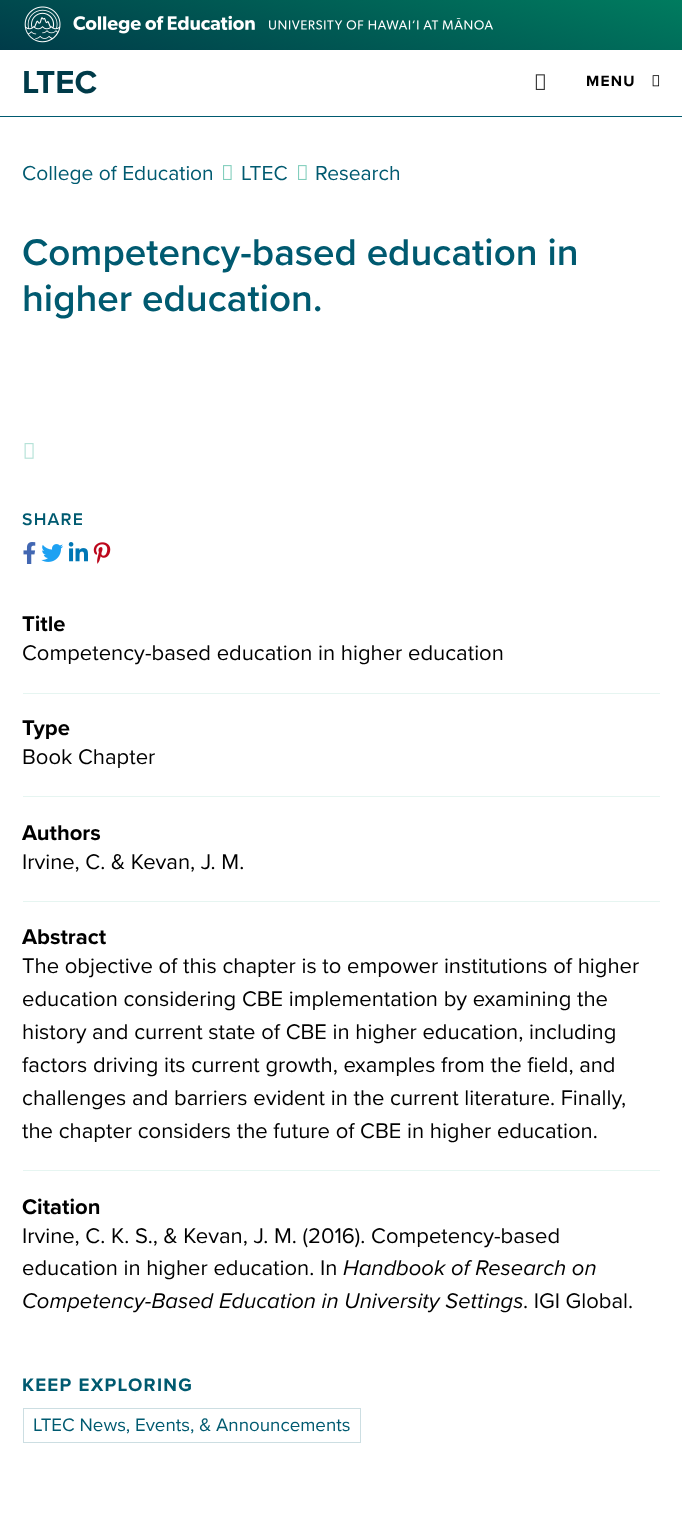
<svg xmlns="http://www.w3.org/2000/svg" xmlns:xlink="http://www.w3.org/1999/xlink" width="682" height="1513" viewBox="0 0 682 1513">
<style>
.cls-1{font:bold 33px Proxima Nova;fill:#003b49}
.cls-2{font:bold 15.5px Proxima Nova;letter-spacing:1.25px;fill:#000000}
.cls-3{font:21px Proxima Nova;fill:#005a70}
.cls-4{font:600 38.5px Proxima Nova;fill:#005a70}
.cls-5{font:600 17.5px Proxima Nova;letter-spacing:1.25px;fill:#005a70}
.cls-6{font:bold 22px Proxima Nova;fill:#000000}
.cls-7{font:22px Proxima Nova;fill:#000000}
.cls-8{font:italic 22px Proxima Nova;fill:#000000}
.cls-9{font:bold 18.75px Proxima Nova;letter-spacing:1.25px;fill:#005a70}
.cls-10{font:18.75px Proxima Nova;fill:#005a70}
</style>
<defs>
<linearGradient id="g1" gradientUnits="userSpaceOnUse" x1="312" y1="134" x2="370" y2="-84"><stop offset="0" stop-color="#003b49"/><stop offset="1" stop-color="#007c5f"/></linearGradient>
</defs>
<rect width="100%" height="100%" fill="#ffffff"/>
<rect fill="#005a70" x="0" y="116" width="682" height="1"/>
<rect fill="url(#g1)" x="0" y="0" width="682" height="50"/>
<image xlink:href="image0.png" x="24" y="6" width="469" height="37"/>
<image xlink:href="image1.png" x="535" y="74" width="10" height="16"/>
<image xlink:href="image2.png" x="652" y="75" width="8" height="12"/>
<image xlink:href="image3.png" x="223" y="165" width="9" height="15"/>
<image xlink:href="image3.png" x="298" y="165" width="9" height="15"/>
<image xlink:href="image4.png" x="24" y="443" width="10" height="16"/>
<image xlink:href="image5.png" x="23" y="542" width="13" height="22"/>
<image xlink:href="image6.png" x="41" y="544" width="23" height="18"/>
<image xlink:href="image7.png" x="68" y="542" width="20" height="20"/>
<image xlink:href="image8.png" x="93" y="542" width="18" height="22"/>
<rect fill="#e6f5f1" x="23" y="693" width="637" height="1"/>
<rect fill="#e6f5f1" x="23" y="796" width="637" height="1"/>
<rect fill="#e6f5f1" x="23" y="901" width="637" height="1"/>
<rect fill="#e6f5f1" x="23" y="1170" width="637" height="1"/>
<rect fill="none" stroke="#ccdee2" x="23.5" y="1408.5" width="337" height="34"/>
<text class="cls-1" x="22" y="93">LTEC</text>
<text class="cls-2" x="586" y="86">MENU</text>
<text class="cls-3" x="22" y="180">College of Education</text>
<text class="cls-3" x="241" y="180">LTEC</text>
<text class="cls-3" x="315" y="180">Research</text>
<text class="cls-4"><tspan x="22" y="265">Competency-based education in</tspan><tspan x="22" y="311">higher education.</tspan></text>
<text class="cls-5" x="22" y="525">SHARE</text>
<text class="cls-6" x="22" y="631">Title</text>
<text class="cls-7" x="22" y="660">Competency-based education in higher education</text>
<text class="cls-6" x="22" y="735">Type</text>
<text class="cls-7" x="22" y="764">Book Chapter</text>
<text class="cls-6" x="22" y="840">Authors</text>
<text class="cls-7" x="22" y="869">Irvine, C. &amp; Kevan, J. M.</text>
<text class="cls-6" x="22" y="944">Abstract</text>
<text class="cls-7"><tspan x="22" y="973">The objective of this chapter is to empower institutions of higher</tspan><tspan x="22" y="1006">education considering CBE implementation by examining the</tspan><tspan x="22" y="1039">history and current state of CBE in higher education, including</tspan><tspan x="22" y="1072">factors driving its current growth, examples from the field, and</tspan><tspan x="22" y="1105">challenges and barriers evident in the current literature. Finally,</tspan><tspan x="22" y="1138">the chapter considers the future of CBE in higher education.</tspan></text>
<text class="cls-6" x="22" y="1214">Citation</text>
<text class="cls-7"><tspan x="22" y="1243">Irvine, C. K. S., &amp; Kevan, J. M. (2016). Competency-based</tspan><tspan x="22" y="1275">education in higher education. In</tspan></text>
<text class="cls-8" x="343" y="1275">Handbook of Research on</text>
<text class="cls-8" x="22" y="1308">Competency-Based Education in University Settings</text>
<text class="cls-7" x="523" y="1308">. IGI Global.</text>
<text class="cls-9" x="22" y="1391">KEEP EXPLORING</text>
<text class="cls-10" x="33" y="1431">LTEC News, Events, &amp; Announcements</text>
</svg>
